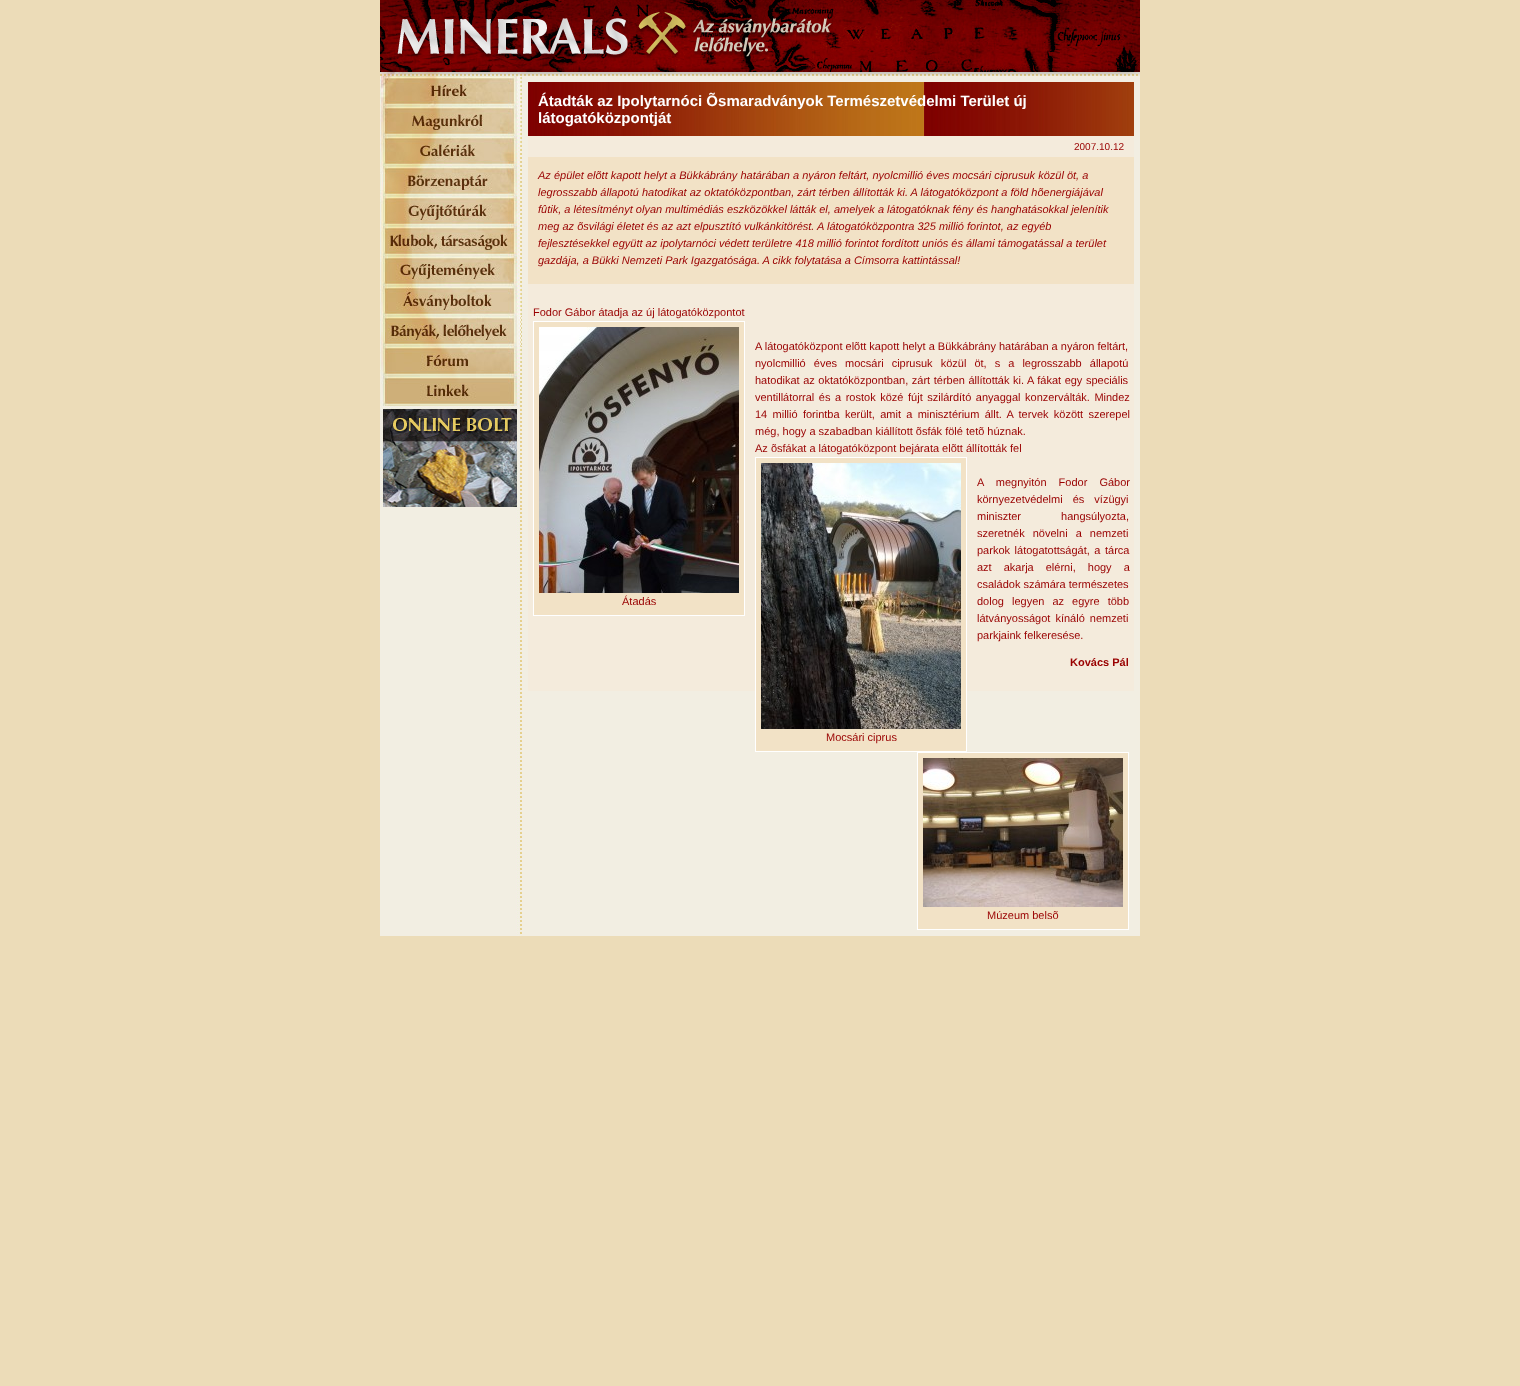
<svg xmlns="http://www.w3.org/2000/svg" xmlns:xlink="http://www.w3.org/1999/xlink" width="1520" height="1386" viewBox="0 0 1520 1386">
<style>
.cls-1{font:bold 15px Liberation Sans;fill:#ffffff}
.cls-2{font:10px Liberation Sans;fill:#990000}
.cls-3{font:italic 11px Liberation Sans;fill:#990000}
.cls-4{font:11px Liberation Sans;fill:#990000}
.cls-5{font:bold 11px Liberation Sans;fill:#990000}
</style>
<rect width="100%" height="100%" fill="#ecdcb8"/>
<image xlink:href="image0.png" x="380" y="0" width="760" height="76"/>
<image xlink:href="image1.png" x="380" y="507" width="142" height="429"/>
<image xlink:href="image2.png" x="380" y="76" width="142" height="30"/>
<image xlink:href="image3.png" x="380" y="106" width="142" height="30"/>
<image xlink:href="image4.png" x="380" y="136" width="142" height="30"/>
<image xlink:href="image5.png" x="380" y="166" width="142" height="30"/>
<image xlink:href="image6.png" x="380" y="196" width="142" height="30"/>
<image xlink:href="image7.png" x="380" y="226" width="142" height="30"/>
<image xlink:href="image8.png" x="380" y="256" width="142" height="30"/>
<image xlink:href="image9.png" x="380" y="286" width="142" height="30"/>
<image xlink:href="image10.png" x="380" y="316" width="142" height="30"/>
<image xlink:href="image11.png" x="380" y="346" width="142" height="30"/>
<image xlink:href="image12.png" x="380" y="376" width="142" height="30"/>
<image xlink:href="image13.png" x="380" y="406" width="142" height="101"/>
<rect fill="#f2eee2" x="522" y="76" width="618" height="860"/>
<image xlink:href="image14.png" x="528" y="82" width="606" height="54"/>
<rect fill="#f4ebdc" x="528" y="136" width="606" height="21"/>
<rect fill="#f2e2c6" x="528" y="157" width="606" height="127"/>
<rect fill="#f4ebdc" x="528" y="284" width="606" height="407"/>
<rect fill="#f2e2c6" stroke="#ffffff" x="533.5" y="321.5" width="211" height="294"/>
<image xlink:href="image15.png" x="539" y="327" width="200" height="266"/>
<rect fill="#f2e2c6" stroke="#ffffff" x="755.5" y="457.5" width="211" height="294"/>
<image xlink:href="image16.png" x="761" y="463" width="200" height="266"/>
<rect fill="#f2e2c6" stroke="#ffffff" x="917.5" y="752.5" width="211" height="177"/>
<image xlink:href="image17.png" x="923" y="758" width="200" height="149"/>
<text class="cls-1"><tspan x="538" y="106">Átadták az Ipolytarnóci Õsmaradványok Természetvédelmi Terület új</tspan><tspan x="538" y="123">látogatóközpontját</tspan></text>
<text class="cls-2" x="1074" y="150">2007.10.12</text>
<text class="cls-3"><tspan x="538" y="179">Az épület elõtt kapott helyt a Bükkábrány határában a nyáron feltárt, nyolcmillió éves mocsári ciprusuk közül öt, a</tspan><tspan x="538" y="196">legrosszabb állapotú hatodikat az oktatóközpontban, zárt térben állították ki. A látogatóközpont a föld hõenergiájával</tspan><tspan x="538" y="213">fûtik, a létesítményt olyan multimédiás eszközökkel látták el, amelyek a látogatóknak fény és hanghatásokkal jelenítik</tspan><tspan x="538" y="230">meg az õsvilági életet és az azt elpusztító vulkánkitörést. A látogatóközpontra 325 millió forintot, az egyéb</tspan><tspan x="538" y="247">fejlesztésekkel együtt az ipolytarnóci védett területre 418 millió forintot fordított uniós és állami támogatással a terület</tspan><tspan x="538" y="264">gazdája, a Bükki Nemzeti Park Igazgatósága. A cikk folytatása a Címsorra kattintással!</tspan></text>
<text class="cls-4" x="533" y="316">Fodor Gábor átadja az új látogatóközpontot</text>
<text class="cls-4"><tspan x="755" y="350">A látogatóközpont elõtt kapott helyt a Bükkábrány határában a nyáron feltárt,</tspan><tspan x="755" y="367" word-spacing="5">nyolcmillió éves mocsári ciprusuk közül öt, s a legrosszabb állapotú</tspan><tspan x="755" y="384" word-spacing="0.5">hatodikat az oktatóközpontban, zárt térben állították ki. A fákat egy speciális</tspan><tspan x="755" y="401" word-spacing="1.5">ventillátorral és a rostok közé fújt szilárdító anyaggal konzerválták. Mindez</tspan><tspan x="755" y="418" word-spacing="2.25">14 millió forintba került, amit a minisztérium állt. A tervek között szerepel</tspan><tspan x="755" y="435">még, hogy a szabadban kiállított õsfák fölé tetõ húznak.</tspan><tspan x="755" y="452">Az õsfákat a látogatóközpont bejárata elõtt állították fel</tspan></text>
<text class="cls-4"><tspan x="977" y="486" word-spacing="9">A megnyitón Fodor Gábor</tspan><tspan x="977" y="503" word-spacing="7">környezetvédelmi és vízügyi</tspan><tspan x="977" y="520" word-spacing="37">miniszter hangsúlyozta,</tspan><tspan x="977" y="537" word-spacing="5">szeretnék növelni a nemzeti</tspan><tspan x="977" y="554" word-spacing="1.5">parkok látogatottságát, a tárca</tspan><tspan x="977" y="571" word-spacing="9">azt akarja elérni, hogy a</tspan><tspan x="977" y="588">családok számára természetes</tspan></text>
<text class="cls-4" x="622" y="605">Átadás</text>
<text class="cls-4"><tspan x="977" y="605" word-spacing="5">dolog legyen az egyre több</tspan><tspan x="977" y="622" word-spacing="2">látványosságot kínáló nemzeti</tspan><tspan x="977" y="639">parkjaink felkeresése.</tspan></text>
<text class="cls-5" x="1070" y="666">Kovács Pál</text>
<text class="cls-4" x="826" y="741">Mocsári ciprus</text>
<text class="cls-4" x="987" y="919">Múzeum belsõ</text>
</svg>
